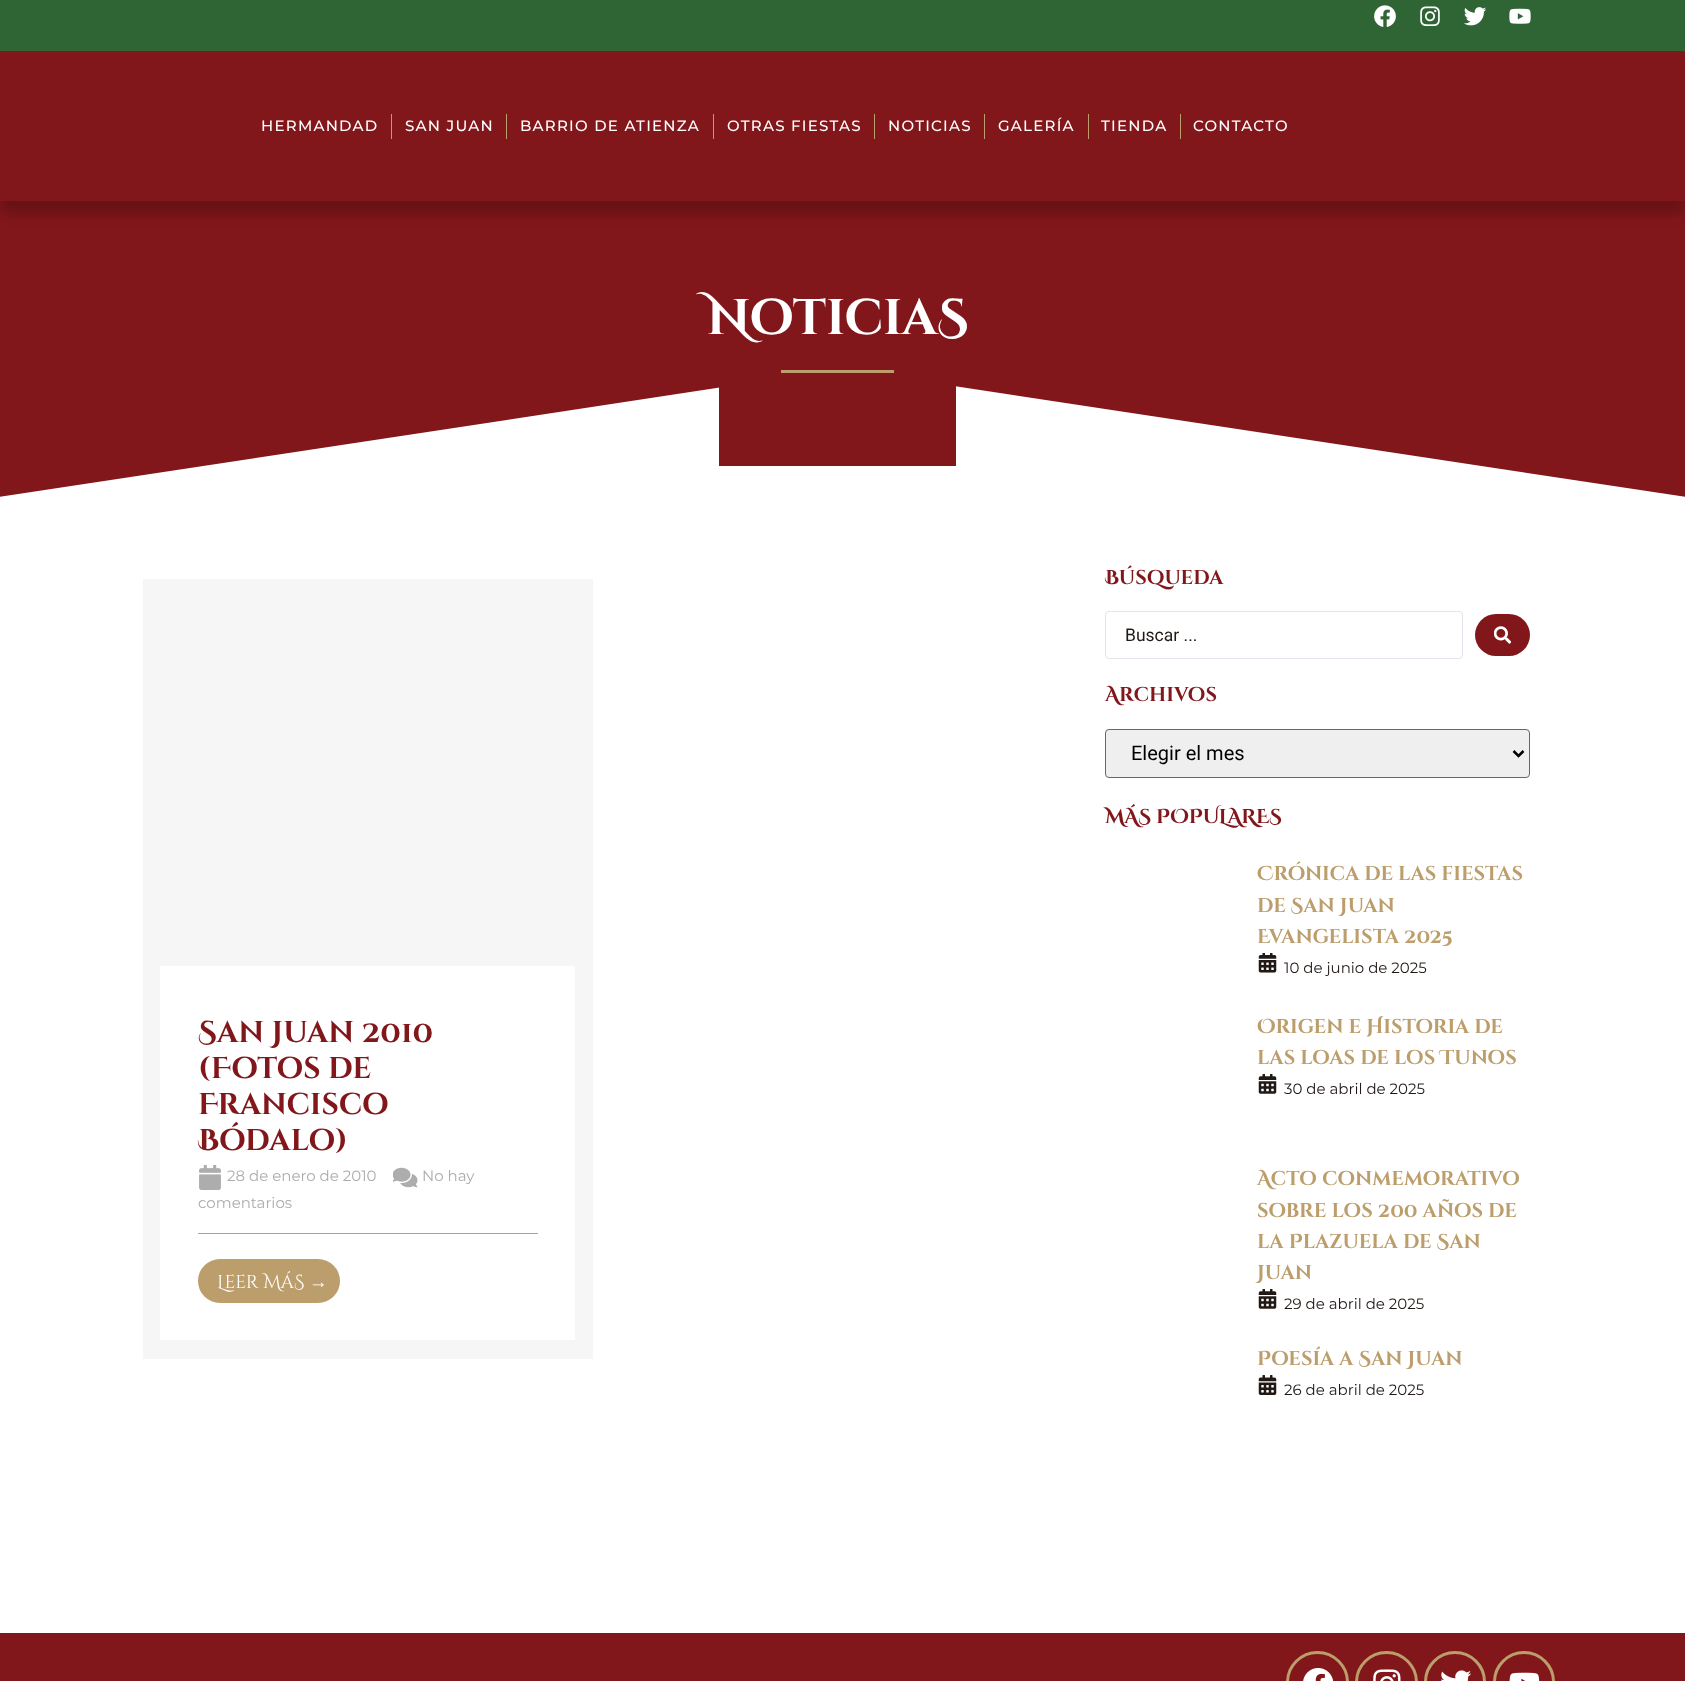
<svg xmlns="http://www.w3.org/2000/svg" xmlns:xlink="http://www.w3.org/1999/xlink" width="1685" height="1681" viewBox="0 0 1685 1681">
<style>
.cls-1{font:500 15px Montserrat;letter-spacing:1.25px;fill:#ffffff}
.cls-2{font:bold 50px Cinzel Decorative;fill:#ffffff}
.cls-3{font:bold 30px Cinzel Decorative;fill:#82171b}
.cls-4{font:15px Montserrat;fill:#adadad}
.cls-5{font:18.75px Cinzel Decorative;fill:#ffffff}
.cls-6{font:18.75px Liberation Sans;fill:#ffffff}
.cls-7{font:bold 20px Cinzel Decorative;fill:#82171b}
.cls-8{font:17.5px Roboto;fill:#211915}
.cls-9{font:20px Roboto;fill:#000000}
.cls-10{font:bold 20px Cinzel Decorative;fill:#bc9e6c}
.cls-11{font:15px Montserrat;fill:#211915}
</style>
<rect width="100%" height="100%" fill="#ffffff"/>
<rect fill="#2f6535" x="0" y="0" width="1685" height="51"/>
<image xlink:href="image0.png" x="1374" y="5" width="22" height="22"/>
<image xlink:href="image1.png" x="1420" y="6" width="20" height="20"/>
<image xlink:href="image2.png" x="1464" y="7" width="22" height="19"/>
<image xlink:href="image3.png" x="1509" y="8" width="22" height="16"/>
<rect fill="#82171b" x="0" y="201" width="1685" height="296"/>
<rect fill="#000000" fill-opacity="0.2" filter="blur(6px)" x="0" y="64" width="1685" height="150"/>
<rect fill="#82171b" x="0" y="51" width="1685" height="150"/>
<rect fill="#bc9e6c" x="391" y="114" width="1" height="25"/>
<rect fill="#bc9e6c" x="506" y="114" width="1" height="25"/>
<rect fill="#bc9e6c" x="713" y="114" width="1" height="25"/>
<rect fill="#bc9e6c" x="874" y="114" width="1" height="25"/>
<rect fill="#bc9e6c" x="984" y="114" width="1" height="25"/>
<rect fill="#bc9e6c" x="1088" y="114" width="1" height="25"/>
<rect fill="#bc9e6c" x="1180" y="114" width="1" height="25"/>
<path fill="#ffffff" d="M842 369L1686 497V505H-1V497Z"/>
<rect fill="#82171b" x="719" y="369" width="237" height="97"/>
<rect fill="#bc9e6c" x="781" y="370" width="113" height="3"/>
<rect fill="#f6f6f6" x="143" y="579" width="450" height="780"/>
<rect fill="#ffffff" x="160" y="966" width="415" height="374"/>
<image xlink:href="image4.png" x="199" y="1165" width="22" height="25"/>
<image xlink:href="image5.png" x="393" y="1167" width="25" height="21"/>
<rect fill="#bc9e6c" x="198" y="1233" width="340" height="1"/>
<rect fill="#bc9e6c" x="198" y="1259" width="142" height="44" rx="22"/>
<rect fill="none" stroke="#e1e5eb" x="1105.5" y="611.5" width="357" height="47" rx="3.5"/>
<rect fill="#82171b" x="1475" y="614" width="55" height="42" rx="21"/>
<image xlink:href="image6.png" x="1494" y="626" width="17" height="18"/>
<rect fill="#efefef" stroke="#666666" x="1105.5" y="729.5" width="424" height="48" rx="3.5"/>
<path fill="none" stroke="#000000" stroke-width="2.5" d="M1513.5 751L1518.5 756L1523.5 751"/>
<image xlink:href="image7.png" x="1258" y="953" width="19" height="20"/>
<image xlink:href="image8.png" x="1258" y="1074" width="19" height="20"/>
<image xlink:href="image8.png" x="1258" y="1289" width="19" height="20"/>
<image xlink:href="image9.png" x="1258" y="1375" width="19" height="20"/>
<rect fill="#82171b" x="0" y="1633" width="1685" height="48"/>
<circle fill="none" stroke="#bc9e6c" stroke-width="3" cx="1317.5" cy="1682.5" r="30"/>
<image xlink:href="image10.png" x="1303" y="1668" width="31" height="13"/>
<circle fill="none" stroke="#bc9e6c" stroke-width="3" cx="1386.5" cy="1682.5" r="30"/>
<image xlink:href="image11.png" x="1373" y="1669" width="28" height="12"/>
<rect fill="none" stroke="#bc9e6c" stroke-width="3" x="1425.5" y="1652.5" width="59" height="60" rx="29.5"/>
<image xlink:href="image12.png" x="1441" y="1670" width="30" height="11"/>
<rect fill="none" stroke="#bc9e6c" stroke-width="3" x="1494.5" y="1652.5" width="59" height="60" rx="29.5"/>
<image xlink:href="image13.png" x="1509" y="1672" width="31" height="9"/>
<text class="cls-1" x="261" y="131">HERMANDAD</text>
<text class="cls-1" x="405" y="131">SAN JUAN</text>
<text class="cls-1" x="520" y="131">BARRIO DE ATIENZA</text>
<text class="cls-1" x="727" y="131">OTRAS FIESTAS</text>
<text class="cls-1" x="888" y="131">NOTICIAS</text>
<text class="cls-1" x="998" y="131">GALERÍA</text>
<text class="cls-1" x="1101" y="131">TIENDA</text>
<text class="cls-1" x="1193" y="131">CONTACTO</text>
<text class="cls-2" x="707" y="334">NoticiaS</text>
<text class="cls-3"><tspan x="198" y="1042">San Juan 2010</tspan><tspan x="198" y="1078">(Fotos de</tspan><tspan x="198" y="1114">Francisco</tspan><tspan x="198" y="1150">Bódalo)</tspan></text>
<text class="cls-4" x="227" y="1181">28 de enero de 2010</text>
<text class="cls-4" x="422" y="1181">No hay</text>
<text class="cls-4" x="198" y="1208">comentarios</text>
<text class="cls-5" x="217" y="1288">Leer MáS</text>
<text class="cls-6" x="309" y="1288">→</text>
<text class="cls-7" x="1105" y="584">Búsqueda</text>
<text class="cls-8" x="1125" y="641">Buscar ...</text>
<text class="cls-7" x="1105" y="701">Archivos</text>
<text class="cls-9" x="1131" y="760">Elegir el mes</text>
<text class="cls-7" x="1105" y="823">MÁS POPULARES</text>
<text class="cls-10"><tspan x="1257" y="880">Crónica de las fiestas</tspan><tspan x="1257" y="912">de San Juan</tspan><tspan x="1257" y="943">Evangelista 2025</tspan></text>
<text class="cls-11" x="1284" y="973">10 de junio de 2025</text>
<text class="cls-10"><tspan x="1257" y="1033">Origen e Historia de</tspan><tspan x="1257" y="1064">las loas de los Tunos</tspan></text>
<text class="cls-11" x="1284" y="1094">30 de abril de 2025</text>
<text class="cls-10"><tspan x="1257" y="1185">Acto conmemorativo</tspan><tspan x="1257" y="1217">sobre los 200 años de</tspan><tspan x="1257" y="1248">la Plazuela de San</tspan><tspan x="1257" y="1279">Juan</tspan></text>
<text class="cls-11" x="1284" y="1309">29 de abril de 2025</text>
<text class="cls-10" x="1257" y="1365">Poesía a San Juan</text>
<text class="cls-11" x="1284" y="1395">26 de abril de 2025</text>
</svg>
